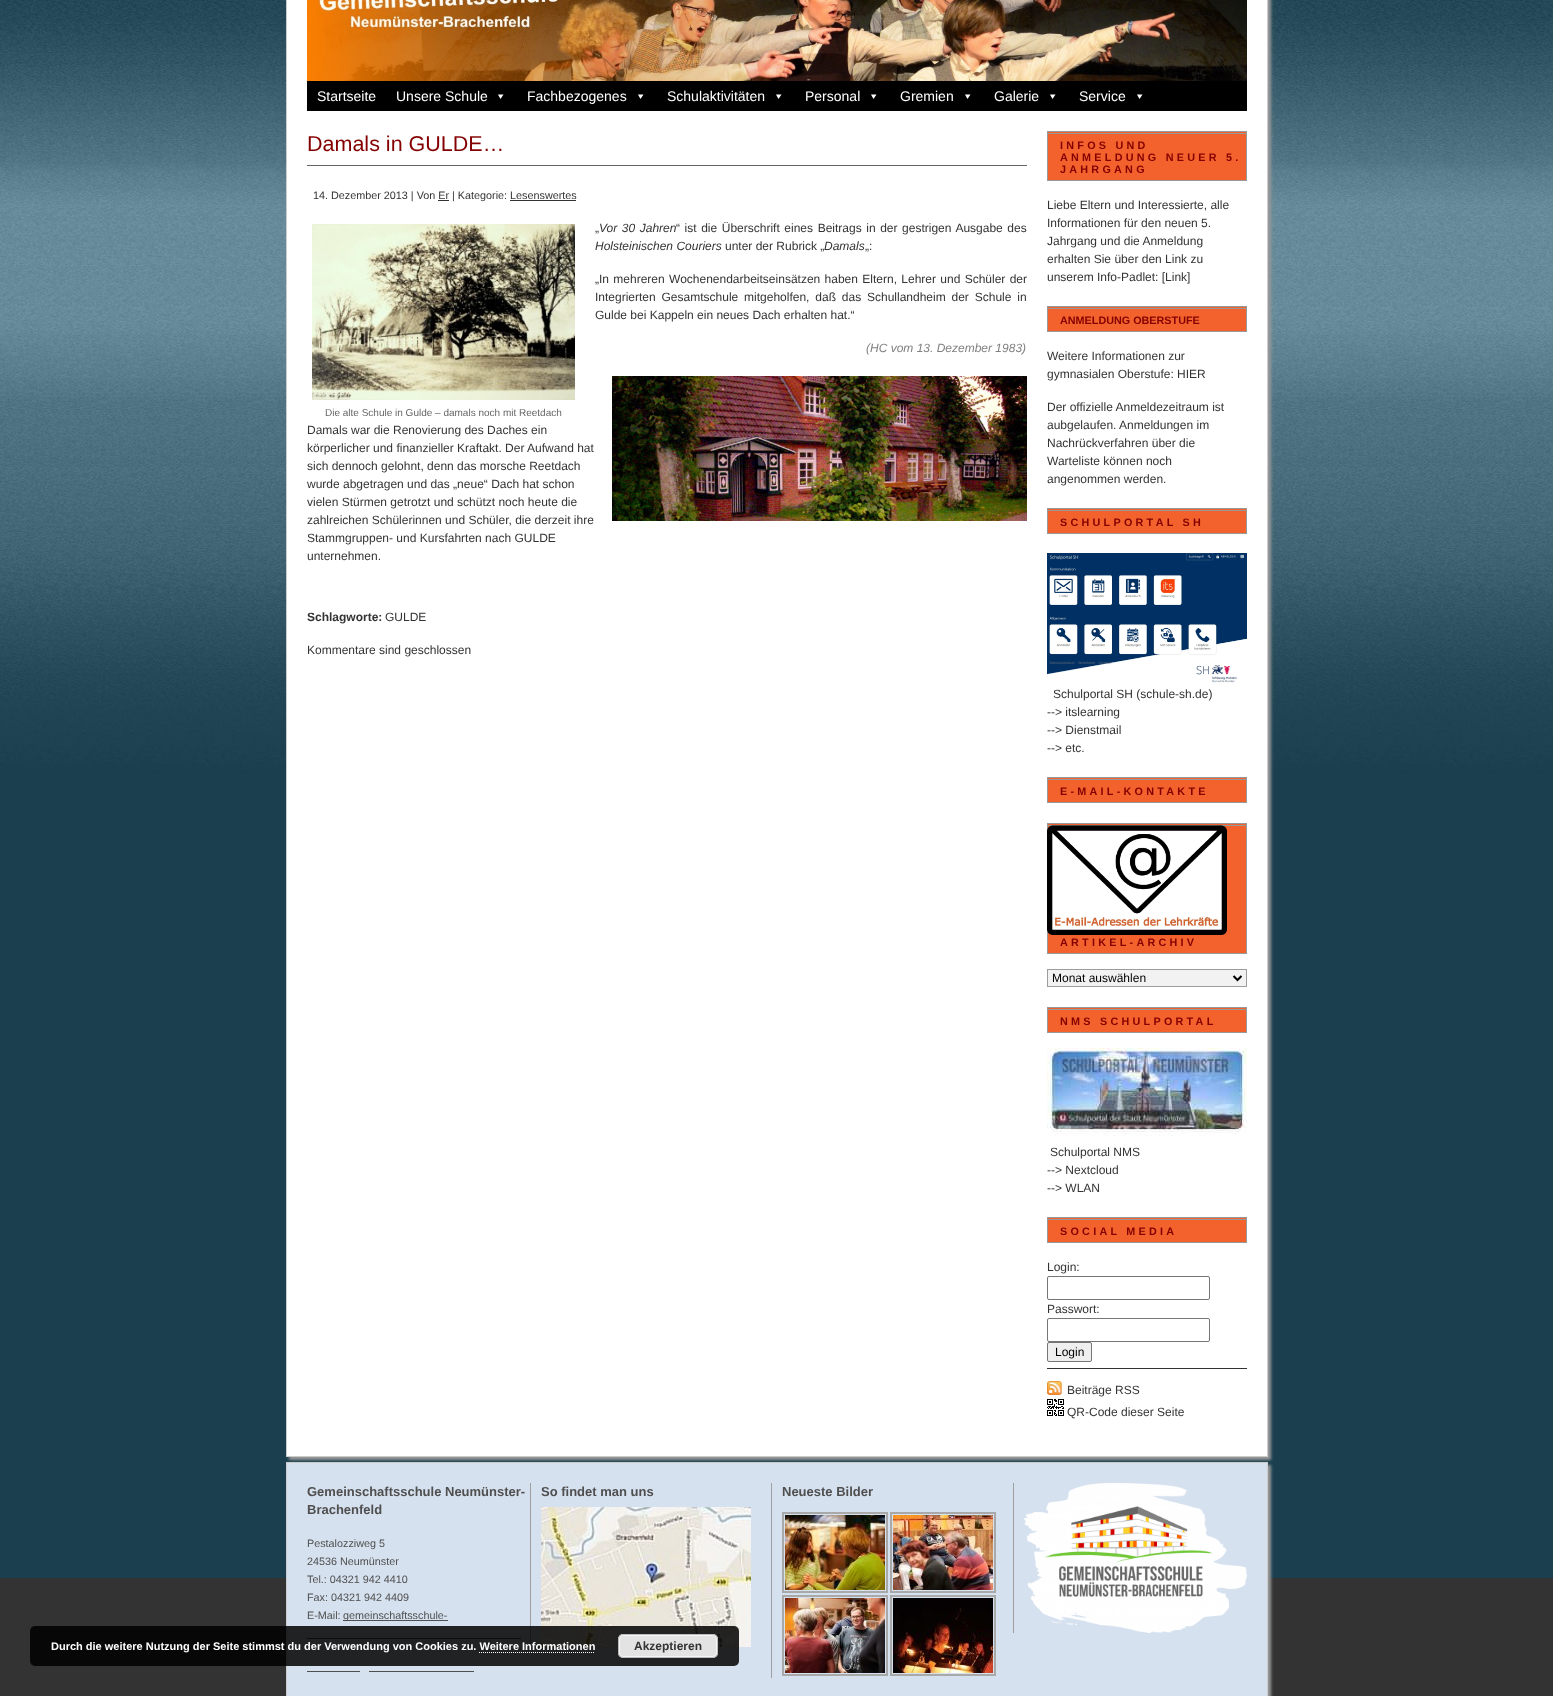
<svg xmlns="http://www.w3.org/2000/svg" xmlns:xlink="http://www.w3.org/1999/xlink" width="1553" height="1696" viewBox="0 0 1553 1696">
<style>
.cls-1{font:14px Liberation Sans;fill:#ffffff}
.cls-2{font:21.5px Liberation Sans;fill:#840000}
.cls-3{font:10.8px Liberation Sans;fill:#333333}
.cls-4{font:12px Liberation Sans;fill:#333333}
.cls-5{font:italic 12px Liberation Sans;fill:#333333}
.cls-6{font:italic 12px Liberation Sans;fill:#808080}
.cls-7{font:10px Liberation Sans;fill:#666666}
.cls-8{font:bold 12px Liberation Sans;fill:#333333}
.cls-9{font:bold 10.8px Liberation Sans;letter-spacing:3.25px;fill:#840000}
.cls-10{font:bold 10.8px Liberation Sans;fill:#840000}
.cls-11{font:12px Liberation Sans;fill:#000000}
.cls-12{font:bold 13px Liberation Sans;fill:#4f4f4f}
.cls-13{font:10.8px Liberation Sans;fill:#4f4f4f}
.cls-14{font:bold 11px Liberation Sans;fill:#ffffff}
</style>
<rect width="100%" height="100%" fill="#333333"/>
<image xlink:href="image0.png" x="0" y="0" width="1553" height="1578"/>
<rect fill="#999999" filter="blur(1.5px)" x="289" y="-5" width="982" height="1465"/>
<rect fill="#ffffff" stroke="#cccccc" x="286.5" y="-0.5" width="981" height="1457"/>
<image xlink:href="image1.png" x="307" y="0" width="940" height="81"/>
<rect fill="#000000" x="307" y="81" width="940" height="30"/>
<path fill="#ffffff" d="M503.5 94.5L500.5 99L498 94.5Z"/>
<path fill="#ffffff" d="M643.5 94.5L640.5 99L638 94.5Z"/>
<path fill="#ffffff" d="M781.5 94.5L778.5 99L776 94.5Z"/>
<path fill="#ffffff" d="M876.5 94.5L873.5 99L871 94.5Z"/>
<path fill="#ffffff" d="M970.5 94.5L967.5 99L965 94.5Z"/>
<path fill="#ffffff" d="M1055.5 94.5L1052.5 99L1050 94.5Z"/>
<path fill="#ffffff" d="M1142.5 94.5L1139.5 99L1137 94.5Z"/>
<rect fill="#666666" x="307" y="165" width="720" height="1"/>
<rect fill="#333333" x="438" y="200" width="11" height="1"/>
<rect fill="#333333" x="510" y="200" width="66" height="1"/>
<image xlink:href="image2.png" x="312" y="224" width="263" height="176"/>
<image xlink:href="image3.png" x="612" y="376" width="415" height="145"/>
<rect fill="#f3622d" x="1048" y="132" width="198" height="48"/>
<rect fill="#999999" x="1047" y="131" width="200" height="1"/>
<rect fill="#999999" x="1047" y="133" width="200" height="1"/>
<rect fill="#999999" x="1246" y="131" width="1" height="50"/>
<rect fill="#999999" x="1047" y="180" width="200" height="1"/>
<rect fill="#999999" x="1047" y="131" width="1" height="50"/>
<rect fill="#f3622d" x="1048" y="307" width="198" height="24"/>
<rect fill="#999999" x="1047" y="306" width="200" height="1"/>
<rect fill="#999999" x="1047" y="308" width="200" height="1"/>
<rect fill="#999999" x="1246" y="306" width="1" height="26"/>
<rect fill="#999999" x="1047" y="331" width="200" height="1"/>
<rect fill="#999999" x="1047" y="306" width="1" height="26"/>
<rect fill="#f3622d" x="1048" y="509" width="198" height="24"/>
<rect fill="#999999" x="1047" y="508" width="200" height="1"/>
<rect fill="#999999" x="1047" y="510" width="200" height="1"/>
<rect fill="#999999" x="1246" y="508" width="1" height="26"/>
<rect fill="#999999" x="1047" y="533" width="200" height="1"/>
<rect fill="#999999" x="1047" y="508" width="1" height="26"/>
<image xlink:href="image4.png" x="1047" y="553" width="200" height="130"/>
<rect fill="#f3622d" x="1048" y="778" width="198" height="24"/>
<rect fill="#999999" x="1047" y="777" width="200" height="1"/>
<rect fill="#999999" x="1047" y="779" width="200" height="1"/>
<rect fill="#999999" x="1246" y="777" width="1" height="26"/>
<rect fill="#999999" x="1047" y="802" width="200" height="1"/>
<rect fill="#999999" x="1047" y="777" width="1" height="26"/>
<rect fill="#f3622d" x="1048" y="824" width="198" height="129"/>
<rect fill="#999999" x="1047" y="825" width="200" height="1"/>
<rect fill="#999999" x="1047" y="823" width="200" height="1"/>
<rect fill="#999999" x="1246" y="823" width="1" height="131"/>
<rect fill="#999999" x="1047" y="953" width="200" height="1"/>
<rect fill="#999999" x="1047" y="823" width="1" height="131"/>
<image xlink:href="image5.png" x="1047" y="825" width="180" height="110"/>
<rect fill="#f2f2f2" stroke="#9c9c9c" x="1047.5" y="969.5" width="199" height="17"/>
<path fill="none" stroke="#000000" stroke-width="2" d="M1233.5 976L1237.5 980L1241.5 976"/>
<rect fill="#f3622d" x="1048" y="1008" width="198" height="24"/>
<rect fill="#999999" x="1047" y="1007" width="200" height="1"/>
<rect fill="#999999" x="1047" y="1009" width="200" height="1"/>
<rect fill="#999999" x="1246" y="1007" width="1" height="26"/>
<rect fill="#999999" x="1047" y="1032" width="200" height="1"/>
<rect fill="#999999" x="1047" y="1007" width="1" height="26"/>
<image xlink:href="image6.png" x="1047" y="1048" width="200" height="88"/>
<rect fill="#f3622d" x="1048" y="1218" width="198" height="24"/>
<rect fill="#999999" x="1047" y="1217" width="200" height="1"/>
<rect fill="#999999" x="1047" y="1219" width="200" height="1"/>
<rect fill="#999999" x="1246" y="1217" width="1" height="26"/>
<rect fill="#999999" x="1047" y="1242" width="200" height="1"/>
<rect fill="#999999" x="1047" y="1217" width="1" height="26"/>
<rect fill="none" stroke="#767676" x="1047.5" y="1276.5" width="162" height="23" rx="1.5"/>
<rect fill="none" stroke="#767676" x="1047.5" y="1318.5" width="162" height="23" rx="1.5"/>
<rect fill="#efefef" stroke="#767676" x="1047.5" y="1342.5" width="44" height="19" rx="1.5"/>
<rect fill="#333333" x="1047" y="1368" width="200" height="1"/>
<image xlink:href="image7.png" x="1047" y="1381" width="15" height="14"/>
<image xlink:href="image8.png" x="1047" y="1399" width="17" height="17"/>
<rect fill="#999999" filter="blur(1.5px)" x="289" y="1465" width="982" height="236"/>
<rect fill="#d6e1ef" stroke="#cccccc" x="286.5" y="1462.5" width="981" height="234"/>
<rect fill="#4f4f4f" x="343" y="1620" width="105" height="1"/>
<rect fill="#4f4f4f" x="307" y="1638" width="214" height="1"/>
<rect fill="#4f4f4f" x="307" y="1671" width="53" height="1"/>
<rect fill="#4f4f4f" x="369" y="1671" width="105" height="1"/>
<rect fill="#9f9f9f" x="530" y="1483" width="1" height="164"/>
<image xlink:href="image9.png" x="541" y="1507" width="210" height="140"/>
<rect fill="#9f9f9f" x="771" y="1483" width="1" height="195"/>
<rect fill="none" stroke="#a9a9a9" stroke-width="2" x="783" y="1513" width="104" height="79"/>
<image xlink:href="image10.png" x="785" y="1515" width="100" height="75"/>
<rect fill="none" stroke="#a9a9a9" stroke-width="2" x="891" y="1513" width="104" height="79"/>
<image xlink:href="image11.png" x="893" y="1515" width="100" height="75"/>
<rect fill="none" stroke="#a9a9a9" stroke-width="2" x="783" y="1596" width="104" height="79"/>
<image xlink:href="image12.png" x="785" y="1598" width="100" height="75"/>
<rect fill="none" stroke="#a9a9a9" stroke-width="2" x="891" y="1596" width="104" height="79"/>
<image xlink:href="image13.png" x="893" y="1598" width="100" height="75"/>
<rect fill="#9f9f9f" x="1013" y="1483" width="1" height="150"/>
<image xlink:href="image14.png" x="1024" y="1483" width="223" height="150"/>
<rect fill="#000000" fill-opacity="0.85" x="30" y="1626" width="709" height="40" rx="5"/>
<rect fill="#e3e3e3" x="618" y="1634" width="100" height="24" rx="5"/>
<rect fill="none" stroke="#f6f6f6" x="619.5" y="1635.5" width="97" height="21" rx="3.5"/>
<rect fill="none" stroke="#bbbbbb" x="618.5" y="1634.5" width="99" height="23" rx="4.5"/>
<path fill="none" stroke="#ffffff" stroke-dasharray="1 1" d="M479 1652.5H595"/>
<text class="cls-1" x="317" y="101">Startseite</text>
<text class="cls-1" x="396" y="101">Unsere Schule</text>
<text class="cls-1" x="527" y="101">Fachbezogenes</text>
<text class="cls-1" x="667" y="101">Schulaktivitäten</text>
<text class="cls-1" x="805" y="101">Personal</text>
<text class="cls-1" x="900" y="101">Gremien</text>
<text class="cls-1" x="994" y="101">Galerie</text>
<text class="cls-1" x="1079" y="101">Service</text>
<text class="cls-2" x="307" y="151">Damals in GULDE…</text>
<text class="cls-3" x="313" y="199">14. Dezember 2013 | Von Er | Kategorie: Lesenswertes</text>
<text class="cls-4" x="595" y="232">„</text>
<text class="cls-5" x="599" y="232" word-spacing="1.25">Vor 30 Jahren</text>
<text class="cls-4" x="676" y="232" word-spacing="1.25">“ ist die Überschrift eines Beitrags in der gestrigen Ausgabe des</text>
<text class="cls-5" x="595" y="250">Holsteinischen Couriers</text>
<text class="cls-4" x="725" y="250">unter der Rubrick „</text>
<text class="cls-5" x="824" y="250">Damals</text>
<text class="cls-4" x="865" y="250">„:</text>
<text class="cls-4"><tspan x="595" y="283" word-spacing="1">„In mehreren Wochenendarbeitseinsätzen haben Eltern, Lehrer und Schüler der</tspan><tspan x="595" y="301" word-spacing="2.5">Integrierten Gesamtschule mitgeholfen, daß das Schullandheim der Schule in</tspan><tspan x="595" y="319">Gulde bei Kappeln ein neues Dach erhalten hat.“</tspan></text>
<text class="cls-6" x="866" y="352">(HC vom 13. Dezember 1983)</text>
<text class="cls-7" x="325" y="416">Die alte Schule in Gulde – damals noch mit Reetdach</text>
<text class="cls-4"><tspan x="307" y="434">Damals war die Renovierung des Daches ein</tspan><tspan x="307" y="452">körperlicher und finanzieller Kraftakt. Der Aufwand hat</tspan><tspan x="307" y="470">sich dennoch gelohnt, denn das morsche Reetdach</tspan><tspan x="307" y="488">wurde abgetragen und das „neue“ Dach hat schon</tspan><tspan x="307" y="506">vielen Stürmen getrotzt und schützt noch heute die</tspan><tspan x="307" y="524">zahlreichen Schülerinnen und Schüler, die derzeit ihre</tspan><tspan x="307" y="542">Stammgruppen- und Kursfahrten nach GULDE</tspan><tspan x="307" y="560">unternehmen.</tspan></text>
<text class="cls-8" x="307" y="621">Schlagworte:</text>
<text class="cls-4" x="385" y="621">GULDE</text>
<text class="cls-4" x="307" y="654">Kommentare sind geschlossen</text>
<text class="cls-9"><tspan x="1060" y="149">INFOS UND</tspan><tspan x="1060" y="161">ANMELDUNG NEUER 5.</tspan><tspan x="1060" y="173">JAHRGANG</tspan></text>
<text class="cls-4"><tspan x="1047" y="209">Liebe Eltern und Interessierte, alle</tspan><tspan x="1047" y="227">Informationen für den neuen 5.</tspan><tspan x="1047" y="245">Jahrgang und die Anmeldung</tspan><tspan x="1047" y="263">erhalten Sie über den Link zu</tspan><tspan x="1047" y="281">unserem Info-Padlet: [Link]</tspan></text>
<text class="cls-10" x="1060" y="324">ANMELDUNG OBERSTUFE</text>
<text class="cls-4"><tspan x="1047" y="360">Weitere Informationen zur</tspan><tspan x="1047" y="378">gymnasialen Oberstufe: HIER</tspan></text>
<text class="cls-4"><tspan x="1047" y="411">Der offizielle Anmeldezeitraum ist</tspan><tspan x="1047" y="429">aubgelaufen. Anmeldungen im</tspan><tspan x="1047" y="447">Nachrückverfahren über die</tspan><tspan x="1047" y="465">Warteliste können noch</tspan><tspan x="1047" y="483">angenommen werden.</tspan></text>
<text class="cls-9" x="1060" y="526">SCHULPORTAL SH</text>
<text class="cls-4" x="1053" y="698">Schulportal SH (schule-sh.de)</text>
<text class="cls-4"><tspan x="1047" y="716">--&gt; itslearning</tspan><tspan x="1047" y="734">--&gt; Dienstmail</tspan><tspan x="1047" y="752">--&gt; etc.</tspan></text>
<text class="cls-9" x="1060" y="795">E-MAIL-KONTAKTE</text>
<text class="cls-9" x="1060" y="946">ARTIKEL-ARCHIV</text>
<text class="cls-11" x="1052" y="982">Monat auswählen</text>
<text class="cls-9" x="1060" y="1025">NMS SCHULPORTAL</text>
<text class="cls-4" x="1050" y="1156">Schulportal NMS</text>
<text class="cls-4"><tspan x="1047" y="1174">--&gt; Nextcloud</tspan><tspan x="1047" y="1192">--&gt; WLAN</tspan></text>
<text class="cls-9" x="1060" y="1235">SOCIAL MEDIA</text>
<text class="cls-4" x="1047" y="1271">Login:</text>
<text class="cls-4" x="1047" y="1313">Passwort:</text>
<text class="cls-11" x="1055" y="1356">Login</text>
<text class="cls-4"><tspan x="1067" y="1394">Beiträge RSS</tspan><tspan x="1067" y="1416">QR-Code dieser Seite</tspan></text>
<text class="cls-12"><tspan x="307" y="1496">Gemeinschaftsschule Neumünster-</tspan><tspan x="307" y="1514">Brachenfeld</tspan></text>
<text class="cls-13"><tspan x="307" y="1547">Pestalozziweg 5</tspan><tspan x="307" y="1565">24536 Neumünster</tspan><tspan x="307" y="1583">Tel.: 04321 942 4410</tspan><tspan x="307" y="1601">Fax: 04321 942 4409</tspan><tspan x="307" y="1619">E-Mail:</tspan></text>
<text class="cls-13" x="343" y="1619">gemeinschaftsschule-</text>
<text class="cls-12" x="541" y="1496">So findet man uns</text>
<text class="cls-12" x="782" y="1496">Neueste Bilder</text>
<text class="cls-14" x="51" y="1650">Durch die weitere Nutzung der Seite stimmst du der Verwendung von Cookies zu. Weitere Informationen</text>
<text class="cls-8" x="634" y="1650">Akzeptieren</text>
</svg>
